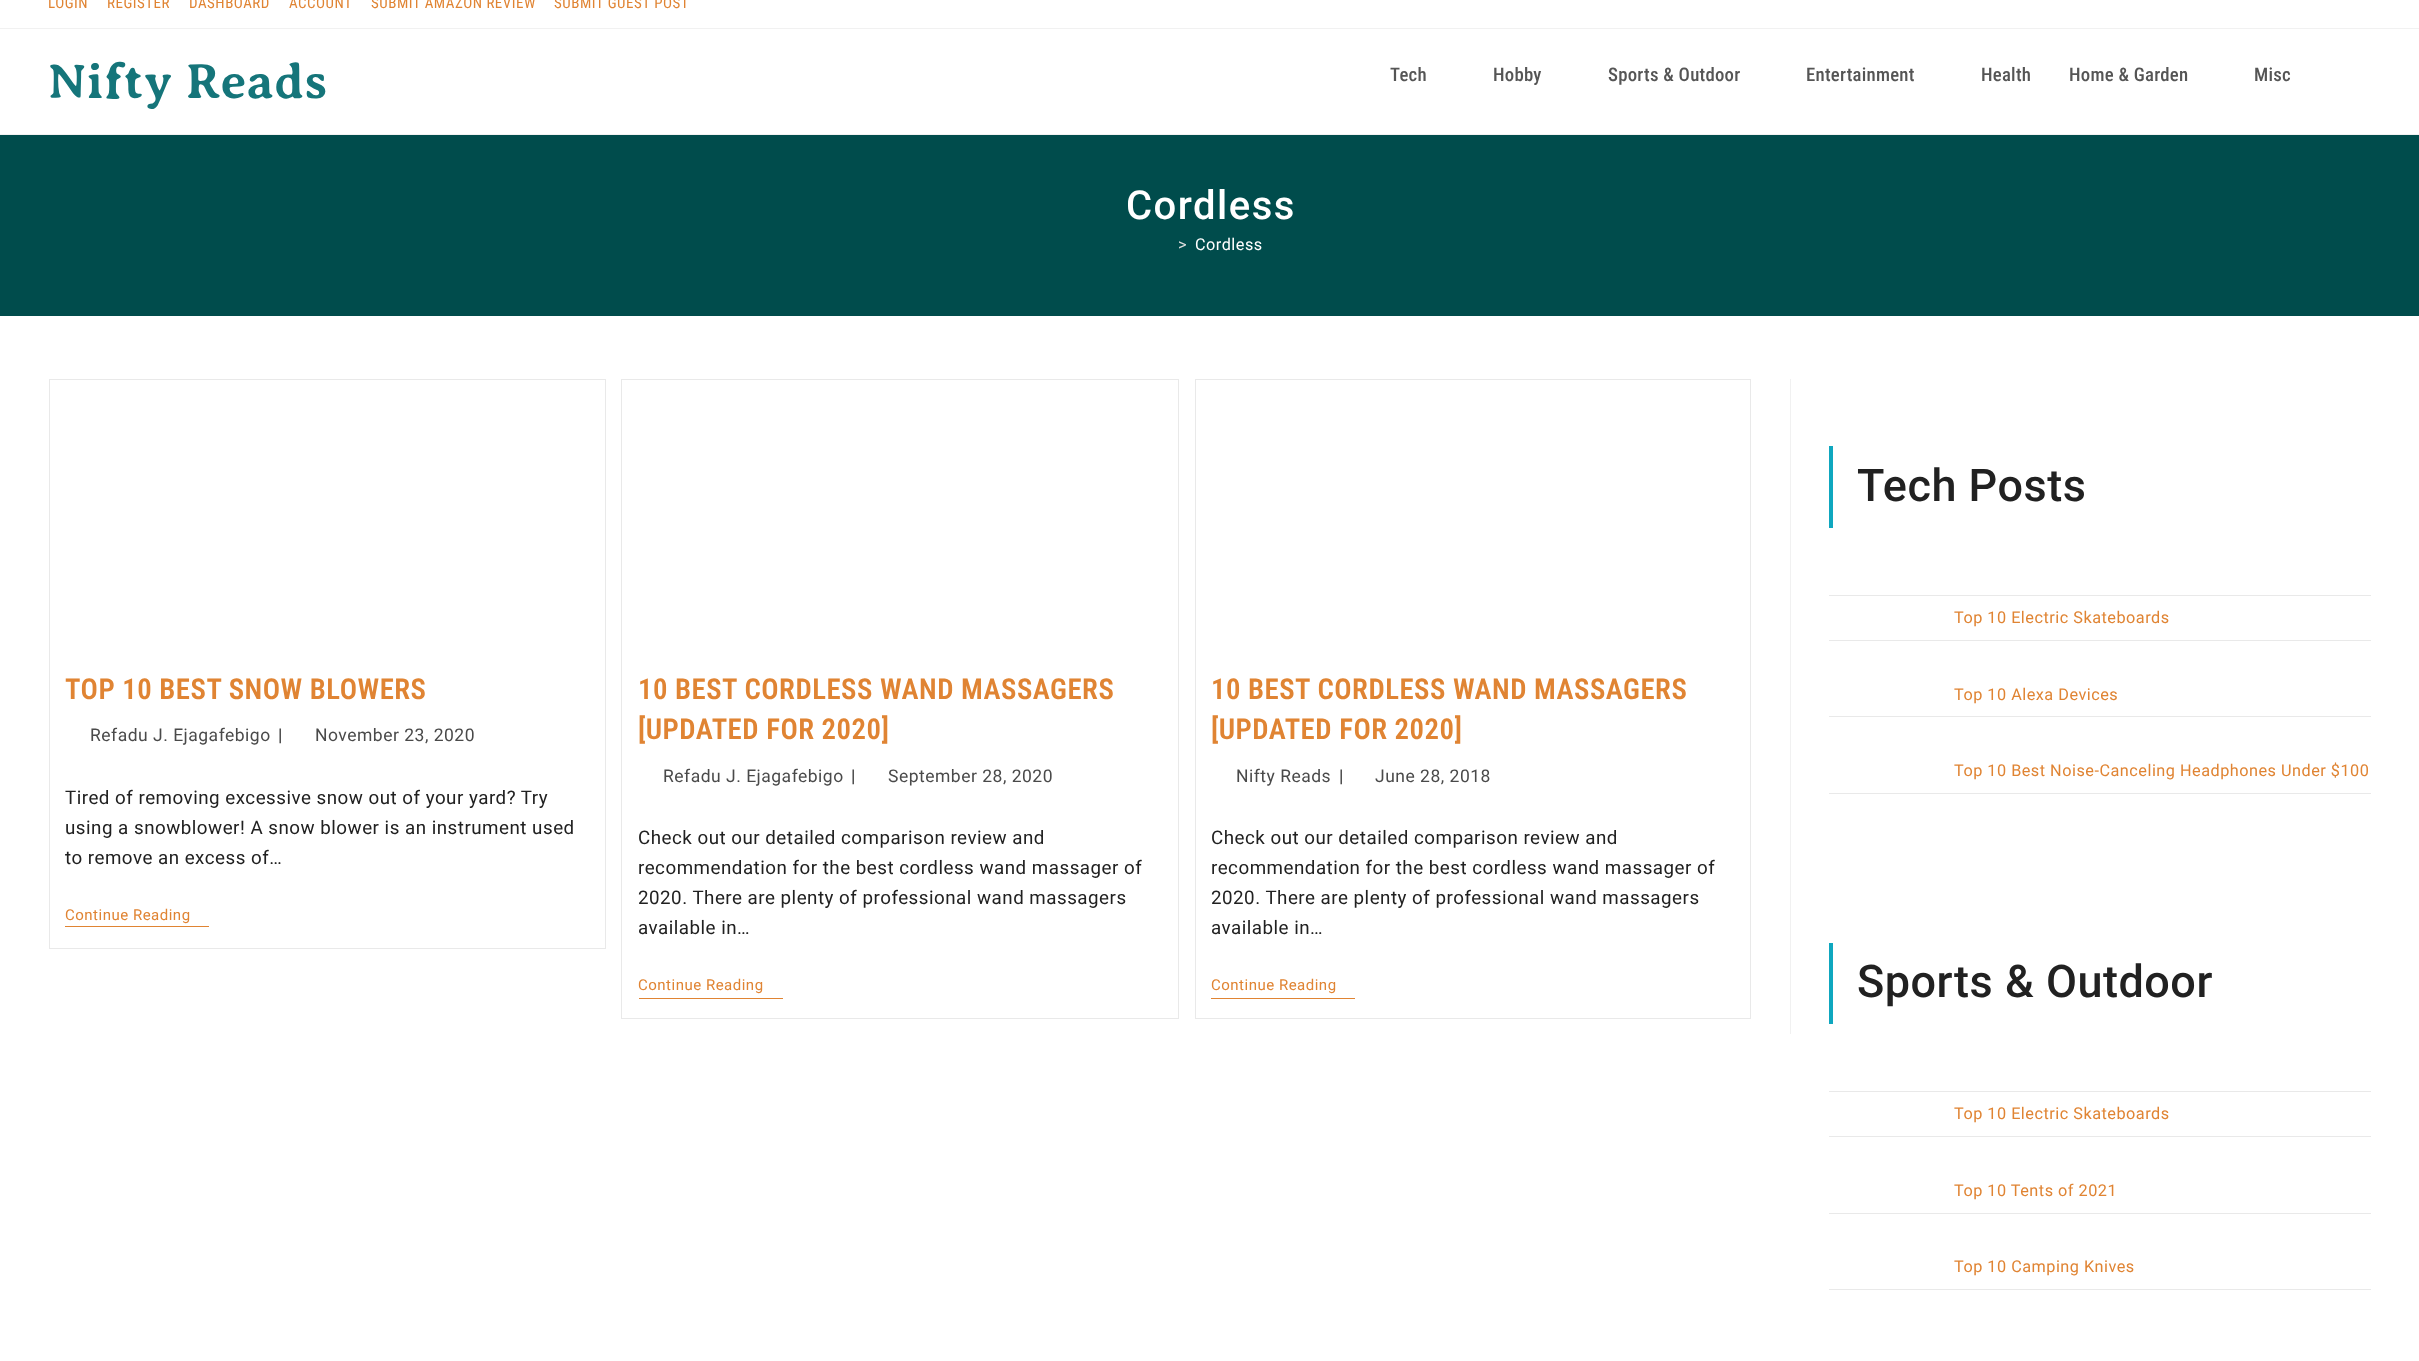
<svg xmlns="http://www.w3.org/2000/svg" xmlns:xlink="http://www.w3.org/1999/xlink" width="2419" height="1361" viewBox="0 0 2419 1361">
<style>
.cls-1{font:15px Roboto Condensed;letter-spacing:0.5px;fill:#e08433}
.cls-2{font:bold 50px Averia Serif Libre;letter-spacing:0.5px;fill:#15757a}
.cls-3{font:500 18.75px Roboto Condensed;letter-spacing:0.25px;fill:#555555}
.cls-4{font:500 40px Roboto;letter-spacing:1.5px;fill:#ffffff}
.cls-5{font:16.25px Roboto;letter-spacing:0.5px;fill:#e0e0e0}
.cls-6{font:16.25px Roboto;letter-spacing:0.5px;fill:#ffffff}
.cls-7{font:600 28.75px Roboto Condensed;letter-spacing:0.5px;fill:#e08433}
.cls-8{font:17.5px Roboto;letter-spacing:0.5px;fill:#4a4a4a}
.cls-9{font:bold 17.5px Roboto;letter-spacing:0.5px;fill:#4a4a4a}
.cls-10{font:18.75px Roboto;letter-spacing:0.5px;fill:#212121}
.cls-11{font:15px Roboto;letter-spacing:0.5px;fill:#e08433}
.cls-12{font:500 45px Roboto;letter-spacing:0.5px;fill:#212121}
.cls-13{font:16.25px Roboto;letter-spacing:0.5px;fill:#e08433}
</style>
<rect width="100%" height="100%" fill="#ffffff"/>
<rect fill="#f1f1f1" x="0" y="28" width="2419" height="1"/>
<rect fill="#f1f1f1" x="0" y="134" width="2419" height="1"/>
<rect fill="#004c4c" x="0" y="135" width="2419" height="181"/>
<rect fill="#f1f1f1" x="1790" y="379" width="1" height="655"/>
<rect fill="none" stroke="#e9e9e9" x="49.5" y="379.5" width="556" height="569"/>
<rect fill="#e08433" x="65" y="926" width="144" height="1"/>
<rect fill="none" stroke="#e9e9e9" x="621.5" y="379.5" width="557" height="639"/>
<rect fill="#e08433" x="639" y="998" width="144" height="1"/>
<rect fill="none" stroke="#e9e9e9" x="1195.5" y="379.5" width="555" height="639"/>
<rect fill="#e08433" x="1211" y="998" width="144" height="1"/>
<rect fill="#0fa7bf" x="1829" y="446" width="4" height="82"/>
<rect fill="#e9e9e9" x="1829" y="595" width="542" height="1"/>
<rect fill="#e9e9e9" x="1829" y="640" width="542" height="1"/>
<rect fill="#e9e9e9" x="1829" y="716" width="542" height="1"/>
<rect fill="#e9e9e9" x="1829" y="793" width="542" height="1"/>
<rect fill="#0fa7bf" x="1829" y="943" width="4" height="81"/>
<rect fill="#e9e9e9" x="1829" y="1091" width="542" height="1"/>
<rect fill="#e9e9e9" x="1829" y="1136" width="542" height="1"/>
<rect fill="#e9e9e9" x="1829" y="1213" width="542" height="1"/>
<rect fill="#e9e9e9" x="1829" y="1289" width="542" height="1"/>
<text class="cls-1" x="48" y="8">LOGIN</text>
<text class="cls-1" x="107" y="8">REGISTER</text>
<text class="cls-1" x="189" y="8">DASHBOARD</text>
<text class="cls-1" x="289" y="8">ACCOUNT</text>
<text class="cls-1" x="371" y="8">SUBMIT AMAZON REVIEW</text>
<text class="cls-1" x="554" y="8">SUBMIT GUEST POST</text>
<text class="cls-2" x="48" y="98">Nifty Reads</text>
<text class="cls-3" x="1390" y="81">Tech</text>
<text class="cls-3" x="1493" y="81">Hobby</text>
<text class="cls-3" x="1608" y="81">Sports &amp; Outdoor</text>
<text class="cls-3" x="1806" y="81">Entertainment</text>
<text class="cls-3" x="1981" y="81">Health</text>
<text class="cls-3" x="2069" y="81">Home &amp; Garden</text>
<text class="cls-3" x="2254" y="81">Misc</text>
<text class="cls-4" x="1126" y="219">Cordless</text>
<text class="cls-5" x="1178" y="250">&gt;</text>
<text class="cls-6" x="1195" y="250">Cordless</text>
<text class="cls-7" x="65" y="699">TOP 10 BEST SNOW BLOWERS</text>
<text class="cls-8" x="90" y="741">Refadu J. Ejagafebigo</text>
<text class="cls-9" x="278" y="741">|</text>
<text class="cls-8" x="315" y="741">November 23, 2020</text>
<text class="cls-10"><tspan x="65" y="804">Tired of removing excessive snow out of your yard? Try</tspan><tspan x="65" y="834">using a snowblower! A snow blower is an instrument used</tspan><tspan x="65" y="864">to remove an excess of…</tspan></text>
<text class="cls-11" x="65" y="920">Continue Reading</text>
<text class="cls-7"><tspan x="638" y="699">10 BEST CORDLESS WAND MASSAGERS</tspan><tspan x="638" y="739">[UPDATED FOR 2020]</tspan></text>
<text class="cls-8" x="663" y="782">Refadu J. Ejagafebigo</text>
<text class="cls-9" x="851" y="782">|</text>
<text class="cls-8" x="888" y="782">September 28, 2020</text>
<text class="cls-10"><tspan x="638" y="844">Check out our detailed comparison review and</tspan><tspan x="638" y="874">recommendation for the best cordless wand massager of</tspan><tspan x="638" y="904">2020. There are plenty of professional wand massagers</tspan><tspan x="638" y="934">available in…</tspan></text>
<text class="cls-11" x="638" y="990">Continue Reading</text>
<text class="cls-7"><tspan x="1211" y="699">10 BEST CORDLESS WAND MASSAGERS</tspan><tspan x="1211" y="739">[UPDATED FOR 2020]</tspan></text>
<text class="cls-8" x="1236" y="782">Nifty Reads</text>
<text class="cls-9" x="1339" y="782">|</text>
<text class="cls-8" x="1375" y="782">June 28, 2018</text>
<text class="cls-10"><tspan x="1211" y="844">Check out our detailed comparison review and</tspan><tspan x="1211" y="874">recommendation for the best cordless wand massager of</tspan><tspan x="1211" y="904">2020. There are plenty of professional wand massagers</tspan><tspan x="1211" y="934">available in…</tspan></text>
<text class="cls-11" x="1211" y="990">Continue Reading</text>
<text class="cls-12" x="1857" y="501">Tech Posts</text>
<text class="cls-13" x="1954" y="623">Top 10 Electric Skateboards</text>
<text class="cls-13" x="1954" y="700">Top 10 Alexa Devices</text>
<text class="cls-13" x="1954" y="776">Top 10 Best Noise-Canceling Headphones Under $100</text>
<text class="cls-12" x="1857" y="997">Sports &amp; Outdoor</text>
<text class="cls-13" x="1954" y="1119">Top 10 Electric Skateboards</text>
<text class="cls-13" x="1954" y="1196">Top 10 Tents of 2021</text>
<text class="cls-13" x="1954" y="1272">Top 10 Camping Knives</text>
</svg>
